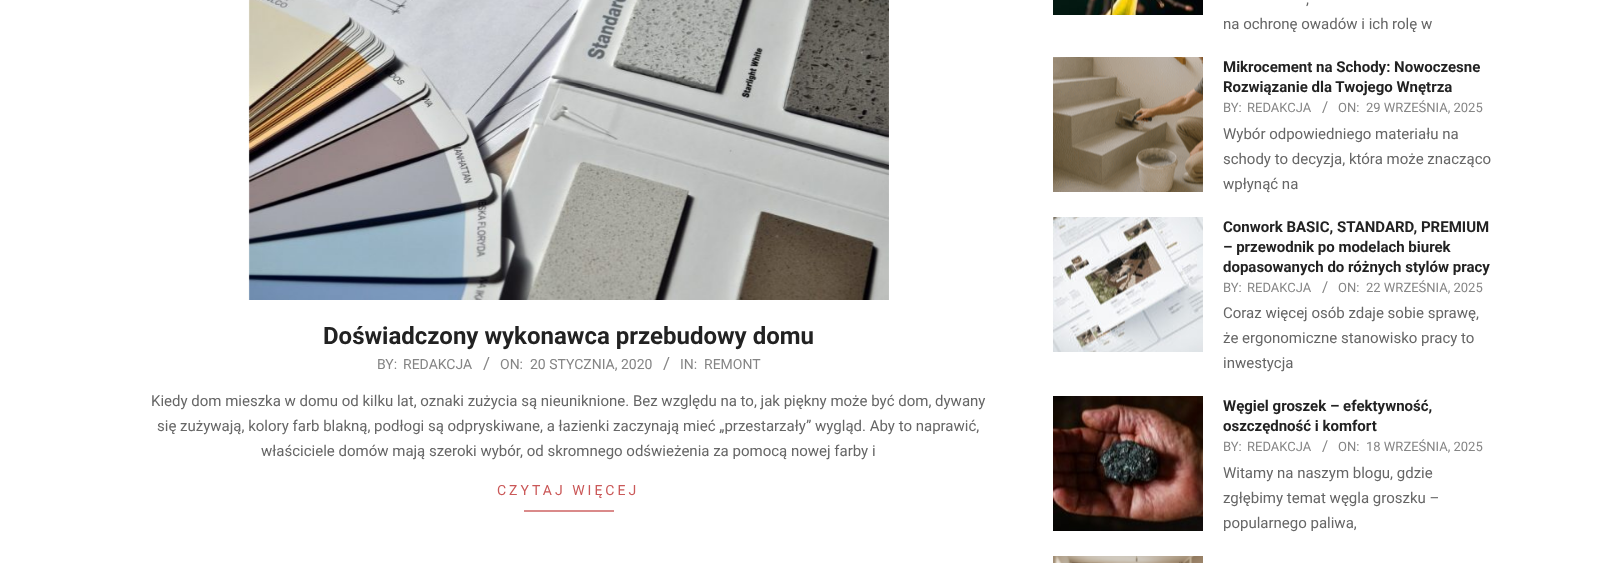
<svg xmlns="http://www.w3.org/2000/svg" xmlns:xlink="http://www.w3.org/1999/xlink" width="1609" height="563" viewBox="0 0 1609 563">
<style>
.cls-1{font:bold 24px Roboto;fill:#222222}
.cls-2{font:14px Roboto;fill:#858585}
.cls-3{font:17px Roboto;fill:#858585}
.cls-4{font:15px Roboto;fill:#666666}
.cls-5{font:14px Roboto;letter-spacing:3px;fill:#ca5858}
.cls-6{font:bold 15px Roboto;fill:#222222}
.cls-7{font:13px Roboto;fill:#858585}
.cls-8{font:15px Roboto;fill:#858585}
</style>
<rect width="100%" height="100%" fill="#ffffff"/>
<image xlink:href="image0.png" x="248" y="0" width="641" height="300"/>
<rect fill="#da8a8a" x="524" y="510" width="90" height="2"/>
<image xlink:href="image1.png" x="1053" y="0" width="150" height="15"/>
<image xlink:href="image2.png" x="1053" y="57" width="150" height="135"/>
<image xlink:href="image3.png" x="1053" y="217" width="150" height="135"/>
<image xlink:href="image4.png" x="1053" y="396" width="150" height="135"/>
<image xlink:href="image5.png" x="1053" y="556" width="150" height="7"/>
<text class="cls-1" x="323" y="344">Doświadczony wykonawca przebudowy domu</text>
<text class="cls-2" x="377" y="369">BY:</text>
<text class="cls-2" x="403" y="369">REDAKCJA</text>
<text class="cls-3" x="483" y="369">/</text>
<text class="cls-2" x="500" y="369">ON:</text>
<text class="cls-2" x="530" y="369">20 STYCZNIA, 2020</text>
<text class="cls-3" x="663" y="369">/</text>
<text class="cls-2" x="680" y="369">IN:</text>
<text class="cls-2" x="704" y="369">REMONT</text>
<text class="cls-4" x="151" y="406">Kiedy dom mieszka w domu od kilku lat, oznaki zużycia są nieuniknione. Bez względu na to, jak piękny może być dom, dywany</text>
<text class="cls-4" x="157" y="431">się zużywają, kolory farb blakną, podłogi są odpryskiwane, a łazienki zaczynają mieć „przestarzały” wygląd. Aby to naprawić,</text>
<text class="cls-4" x="261" y="456">właściciele domów mają szeroki wybór, od skromnego odświeżenia za pomocą nowej farby i</text>
<text class="cls-5" x="497" y="495">CZYTAJ WIĘCEJ</text>
<text class="cls-4" x="1306" y="4">,</text>
<text class="cls-4" x="1223" y="29">na ochronę owadów i ich rolę w</text>
<text class="cls-6"><tspan x="1223" y="72">Mikrocement na Schody: Nowoczesne</tspan><tspan x="1223" y="92">Rozwiązanie dla Twojego Wnętrza</tspan></text>
<text class="cls-7" x="1223" y="112">BY:</text>
<text class="cls-7" x="1247" y="112">REDAKCJA</text>
<text class="cls-8" x="1322" y="112">/</text>
<text class="cls-7" x="1338" y="112">ON:</text>
<text class="cls-7" x="1366" y="112">29 WRZEŚNIA, 2025</text>
<text class="cls-4"><tspan x="1223" y="139">Wybór odpowiedniego materiału na</tspan><tspan x="1223" y="164">schody to decyzja, która może znacząco</tspan><tspan x="1223" y="189">wpłynąć na</tspan></text>
<text class="cls-6"><tspan x="1223" y="232">Conwork BASIC, STANDARD, PREMIUM</tspan><tspan x="1223" y="252">– przewodnik po modelach biurek</tspan><tspan x="1223" y="272">dopasowanych do różnych stylów pracy</tspan></text>
<text class="cls-7" x="1223" y="292">BY:</text>
<text class="cls-7" x="1247" y="292">REDAKCJA</text>
<text class="cls-8" x="1322" y="292">/</text>
<text class="cls-7" x="1338" y="292">ON:</text>
<text class="cls-7" x="1366" y="292">22 WRZEŚNIA, 2025</text>
<text class="cls-4"><tspan x="1223" y="318">Coraz więcej osób zdaje sobie sprawę,</tspan><tspan x="1223" y="343">że ergonomiczne stanowisko pracy to</tspan><tspan x="1223" y="368">inwestycja</tspan></text>
<text class="cls-6"><tspan x="1223" y="411">Węgiel groszek – efektywność,</tspan><tspan x="1223" y="431">oszczędność i komfort</tspan></text>
<text class="cls-7" x="1223" y="451">BY:</text>
<text class="cls-7" x="1247" y="451">REDAKCJA</text>
<text class="cls-8" x="1322" y="451">/</text>
<text class="cls-7" x="1338" y="451">ON:</text>
<text class="cls-7" x="1366" y="451">18 WRZEŚNIA, 2025</text>
<text class="cls-4"><tspan x="1223" y="478">Witamy na naszym blogu, gdzie</tspan><tspan x="1223" y="503">zgłębimy temat węgla groszku –</tspan><tspan x="1223" y="528">popularnego paliwa,</tspan></text>
</svg>
